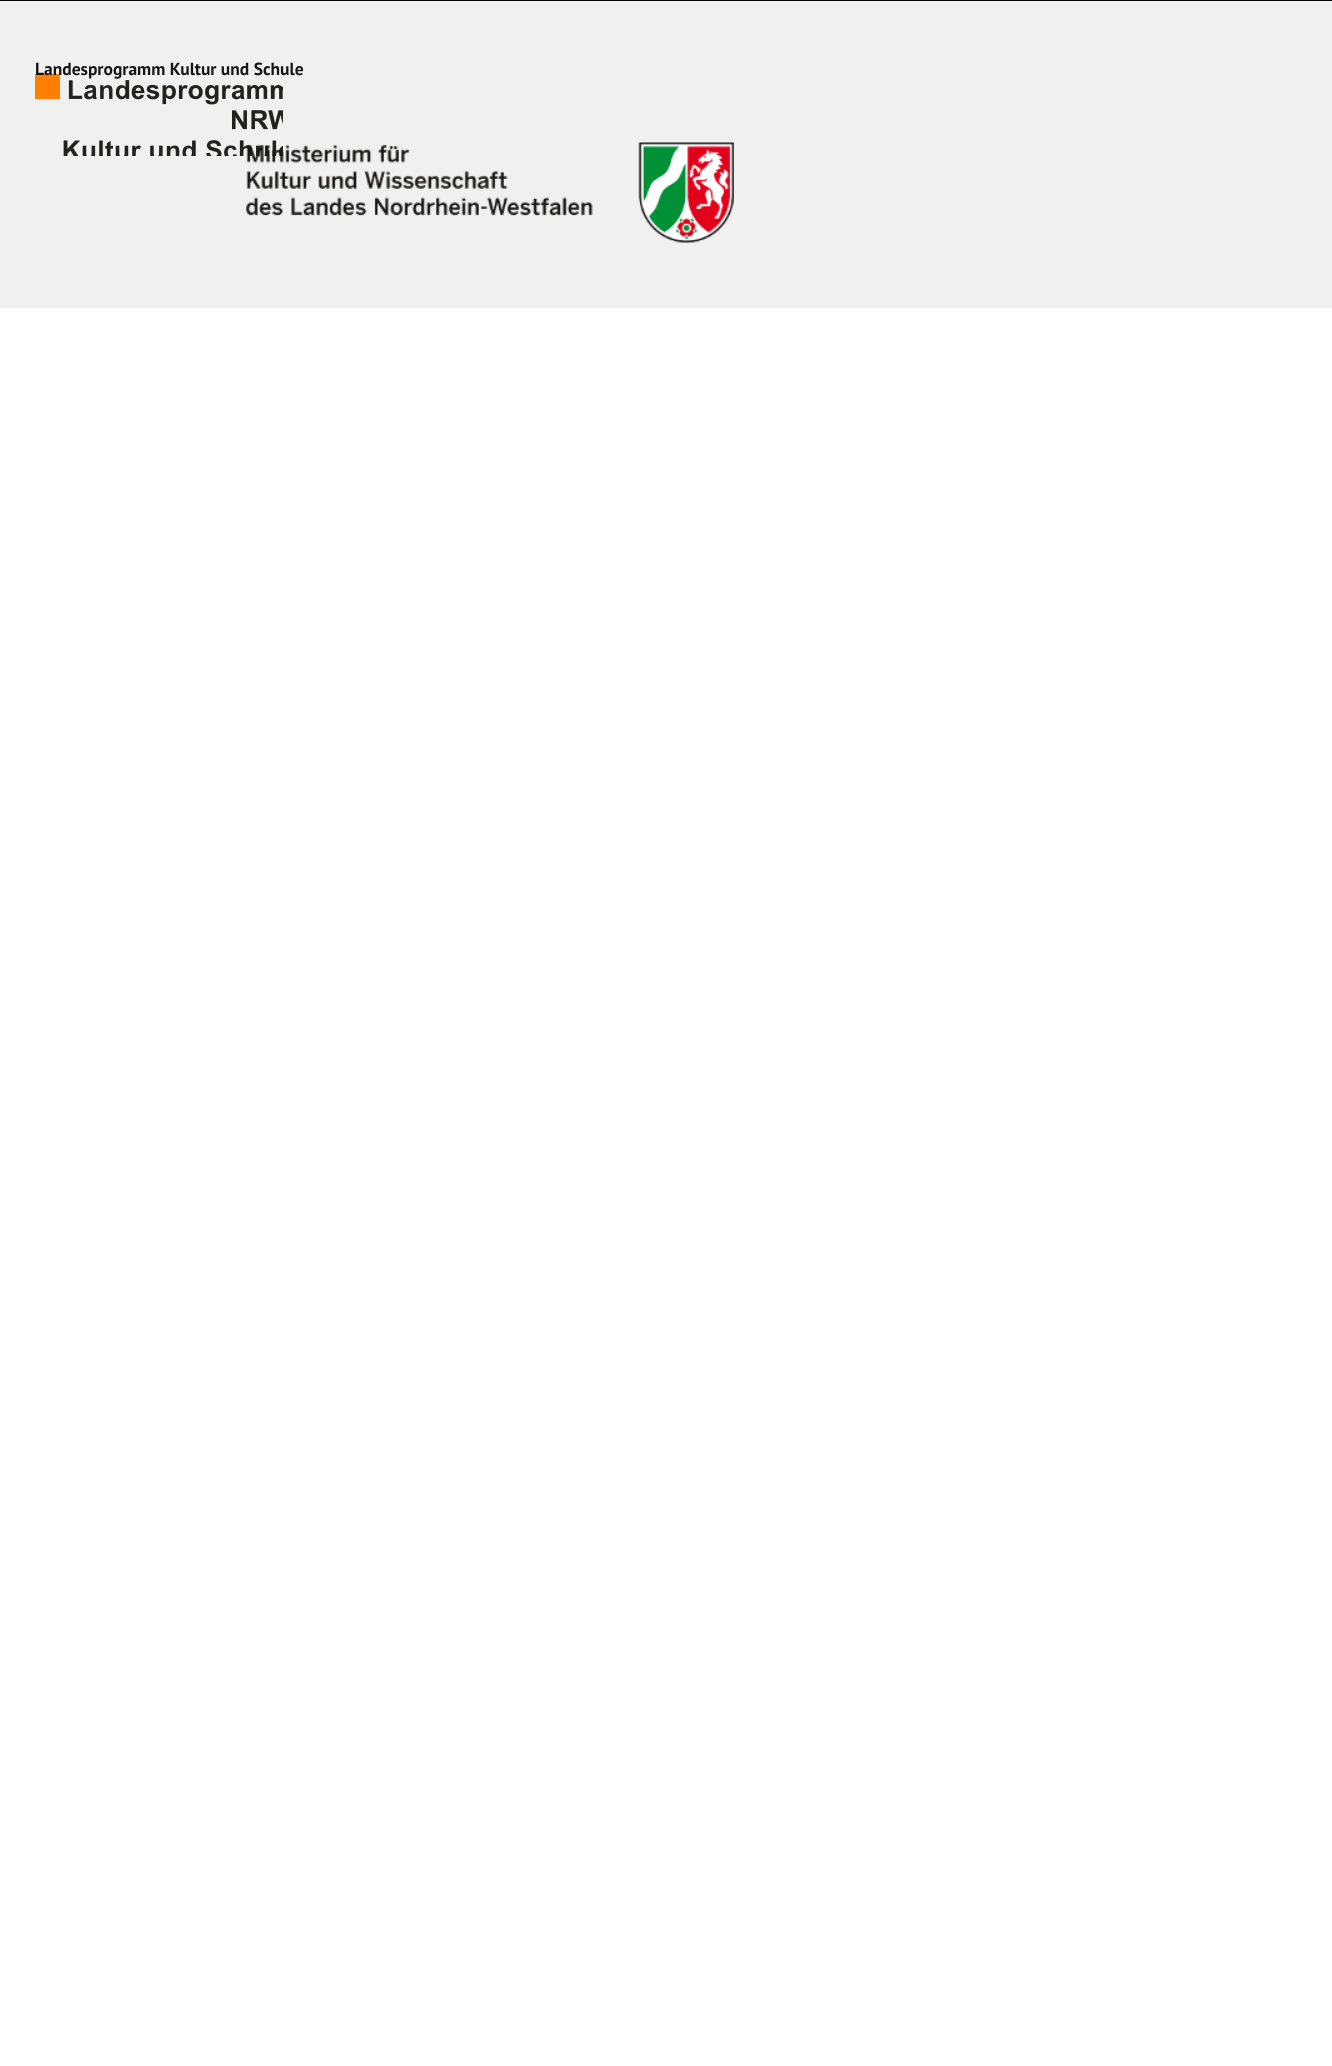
<svg xmlns="http://www.w3.org/2000/svg" xmlns:xlink="http://www.w3.org/1999/xlink" width="1332" height="2066" viewBox="0 0 1332 2066">
<style>
.cls-1{font:bold 17.5px PT Sans;fill:#151515}
</style>
<rect width="100%" height="100%" fill="#ffffff"/>
<rect fill="#000000" x="0" y="0" width="1332" height="1"/>
<rect fill="#f0f0f0" x="0" y="1" width="1332" height="307"/>
<image xlink:href="image0.png" x="35" y="74" width="248" height="82"/>
<image xlink:href="image1.png" x="246" y="142" width="488" height="101"/>
<text class="cls-1" x="35" y="75">Landesprogramm Kultur und Schule</text>
</svg>
